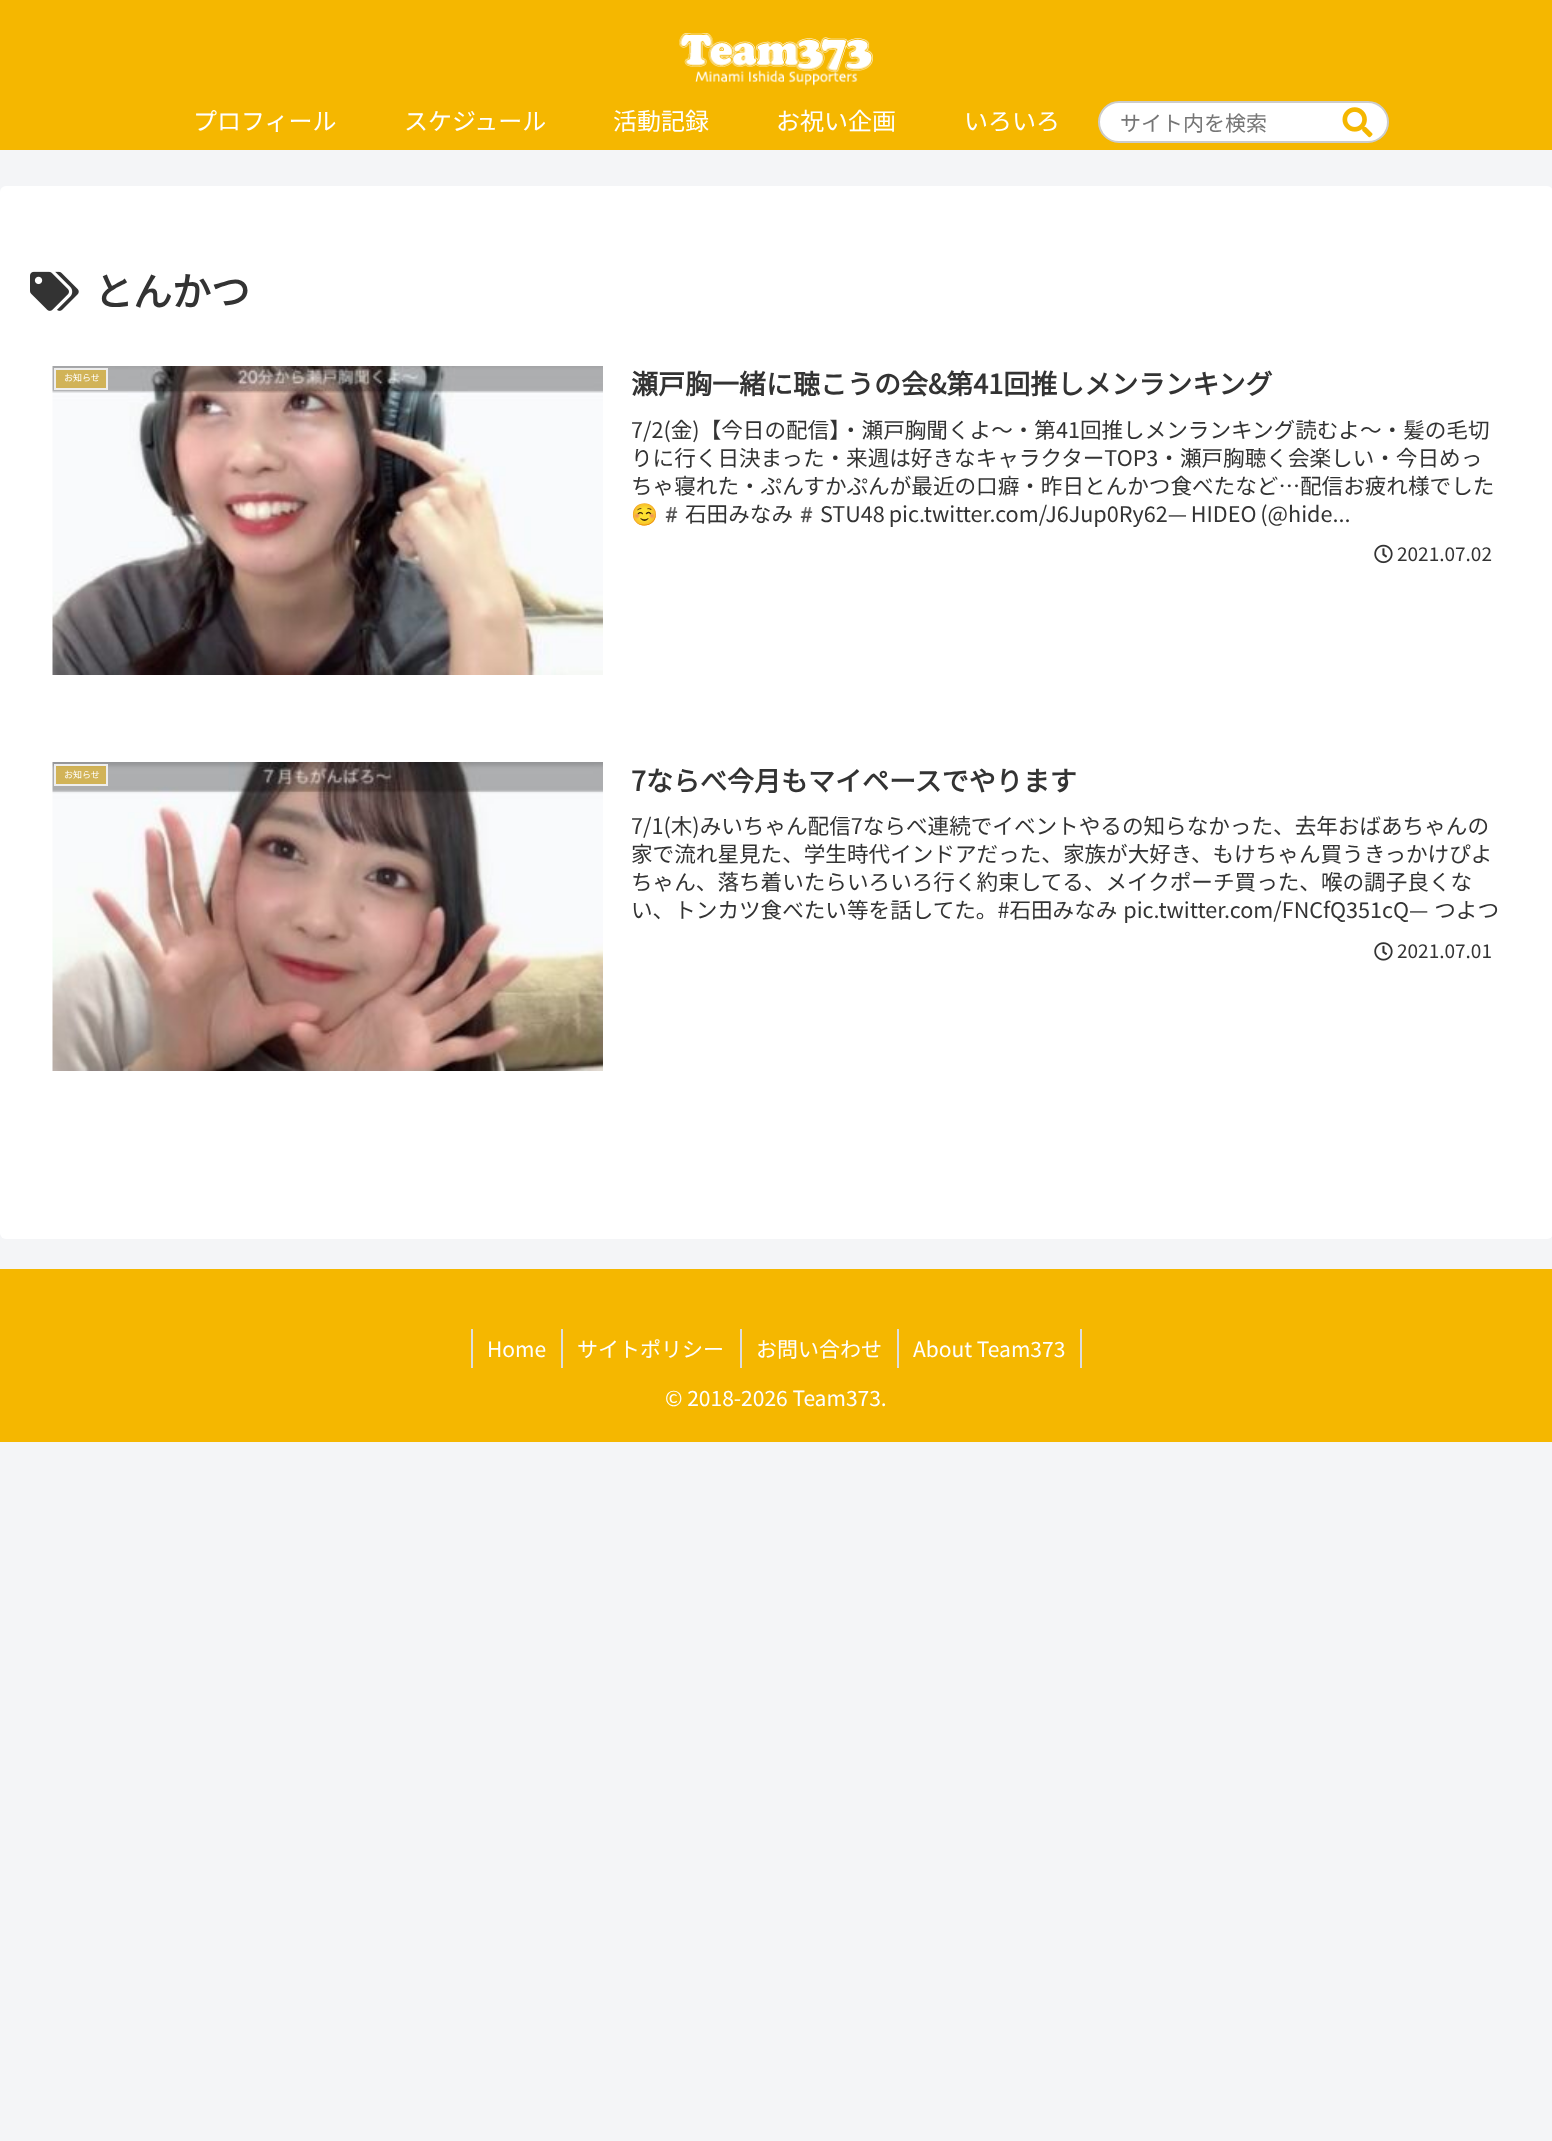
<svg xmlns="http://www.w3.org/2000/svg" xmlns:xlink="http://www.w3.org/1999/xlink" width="1552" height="2141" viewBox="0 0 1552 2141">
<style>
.cls-1{font:100 24px Noto Sans JP;fill:#ffffff}
.cls-2{font:100 21px Noto Sans JP;fill:#757575}
.cls-3{font:bold 39px Noto Sans JP;fill:#333333}
.cls-4{font:100 9px Noto Sans JP;fill:#ffffff}
.cls-5{font:bold 27px Noto Sans JP;fill:#333333}
.cls-6{font:100 21.6px Noto Sans JP;fill:#333333}
.cls-7{font:21.6px Noto Color Emoji;fill:#333333}
.cls-8{font:100 19px Noto Sans JP;fill:#333333}
.cls-9{font:100 21px Noto Sans JP;fill:#ffffff}
</style>
<defs>
<clipPath id="clip1"><rect x="632" y="416" width="868" height="112"/></clipPath>
</defs>
<rect width="100%" height="100%" fill="#f4f5f7"/>
<rect fill="#f5b700" x="0" y="0" width="1552" height="150"/>
<image xlink:href="image0.png" x="679" y="33" width="194" height="53"/>
<rect fill="#ffffff" stroke="#cccccc" stroke-width="2" x="1099" y="102" width="289" height="40" rx="20"/>
<image xlink:href="image1.png" x="1342" y="107" width="31" height="31"/>
<rect fill="#ffffff" x="0" y="186" width="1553" height="1053" rx="6"/>
<image xlink:href="image2.png" x="30" y="271" width="49" height="40"/>
<image xlink:href="image3.png" x="52" y="366" width="551" height="309"/>
<rect fill="#f5b700" fill-opacity="0.5" stroke="#eeeeee" stroke-width="2" x="55" y="369" width="52" height="20"/>
<image xlink:href="image4.png" x="1374" y="544" width="19" height="20"/>
<image xlink:href="image5.png" x="52" y="762" width="551" height="309"/>
<rect fill="#f5b700" fill-opacity="0.5" stroke="#eeeeee" stroke-width="2" x="55" y="765" width="52" height="20"/>
<image xlink:href="image6.png" x="1374" y="942" width="19" height="19"/>
<rect fill="#f5b700" x="0" y="1269" width="1552" height="173"/>
<rect fill="#dddddd" x="471" y="1329" width="2" height="39"/>
<rect fill="#dddddd" x="561" y="1329" width="2" height="39"/>
<rect fill="#dddddd" x="740" y="1329" width="2" height="39"/>
<rect fill="#dddddd" x="1080" y="1329" width="2" height="39"/>
<rect fill="#dddddd" x="897" y="1329" width="2" height="39"/>
<text class="cls-1" x="193" y="130">プロフィール</text>
<text class="cls-1" x="404" y="130">スケジュール</text>
<text class="cls-1" x="613" y="130">活動記録</text>
<text class="cls-1" x="776" y="130">お祝い企画</text>
<text class="cls-1" x="964" y="130">いろいろ</text>
<text class="cls-2" x="1120" y="131">サイト内を検索</text>
<text class="cls-3" x="94" y="306">とんかつ</text>
<text class="cls-4" x="64" y="381">お知らせ</text>
<text class="cls-5" x="631" y="394">瀬戸胸一緒に聴こうの会&amp;第41回推しメンランキング</text>
<text class="cls-6"><tspan x="631" y="438">7/2(金)【今日の配信】・瀬戸胸聞くよ～・第41回推しメンランキング読むよ～・髪の毛切</tspan><tspan x="631" y="466">りに行く日決まった・来週は好きなキャラクターTOP3・瀬戸胸聴く会楽しい・今日めっ</tspan><tspan x="631" y="494">ちゃ寝れた・ぷんすかぷんが最近の口癖・昨日とんかつ食べたなど…配信お疲れ様でした</tspan></text>
<g clip-path="url(#clip1)">
<text class="cls-7" x="631" y="522">☺️#</text>
</g>
<text class="cls-6" x="685" y="522">石田みなみ</text>
<text class="cls-7" x="793" y="522">#</text>
<text class="cls-6" x="820" y="522" word-spacing="-1">STU48 pic.twitter.com/J6Jup0Ry62— HIDEO (@hide...</text>
<text class="cls-8" x="1397" y="561">2021.07.02</text>
<text class="cls-4" x="64" y="778">お知らせ</text>
<text class="cls-5" x="631" y="791">7ならべ今月もマイペースでやります</text>
<text class="cls-6"><tspan x="631" y="834">7/1(木)みいちゃん配信7ならべ連続でイベントやるの知らなかった、去年おばあちゃんの</tspan><tspan x="631" y="862">家で流れ星見た、学生時代インドアだった、家族が大好き、もけちゃん買うきっかけぴよ</tspan><tspan x="631" y="890">ちゃん、落ち着いたらいろいろ行く約束してる、メイクポーチ買った、喉の調子良くな</tspan><tspan x="631" y="918" word-spacing="1">い、トンカツ食べたい等を話してた。#石田みなみ pic.twitter.com/FNCfQ351cQ— つよつ</tspan></text>
<text class="cls-8" x="1397" y="958">2021.07.01</text>
<text class="cls-9" x="487" y="1357">Home</text>
<text class="cls-9" x="577" y="1357">サイトポリシー</text>
<text class="cls-9" x="756" y="1357">お問い合わせ</text>
<text class="cls-9" x="913" y="1357">About Team373</text>
<text class="cls-9" x="665" y="1406">© 2018-2026 Team373.</text>
</svg>
